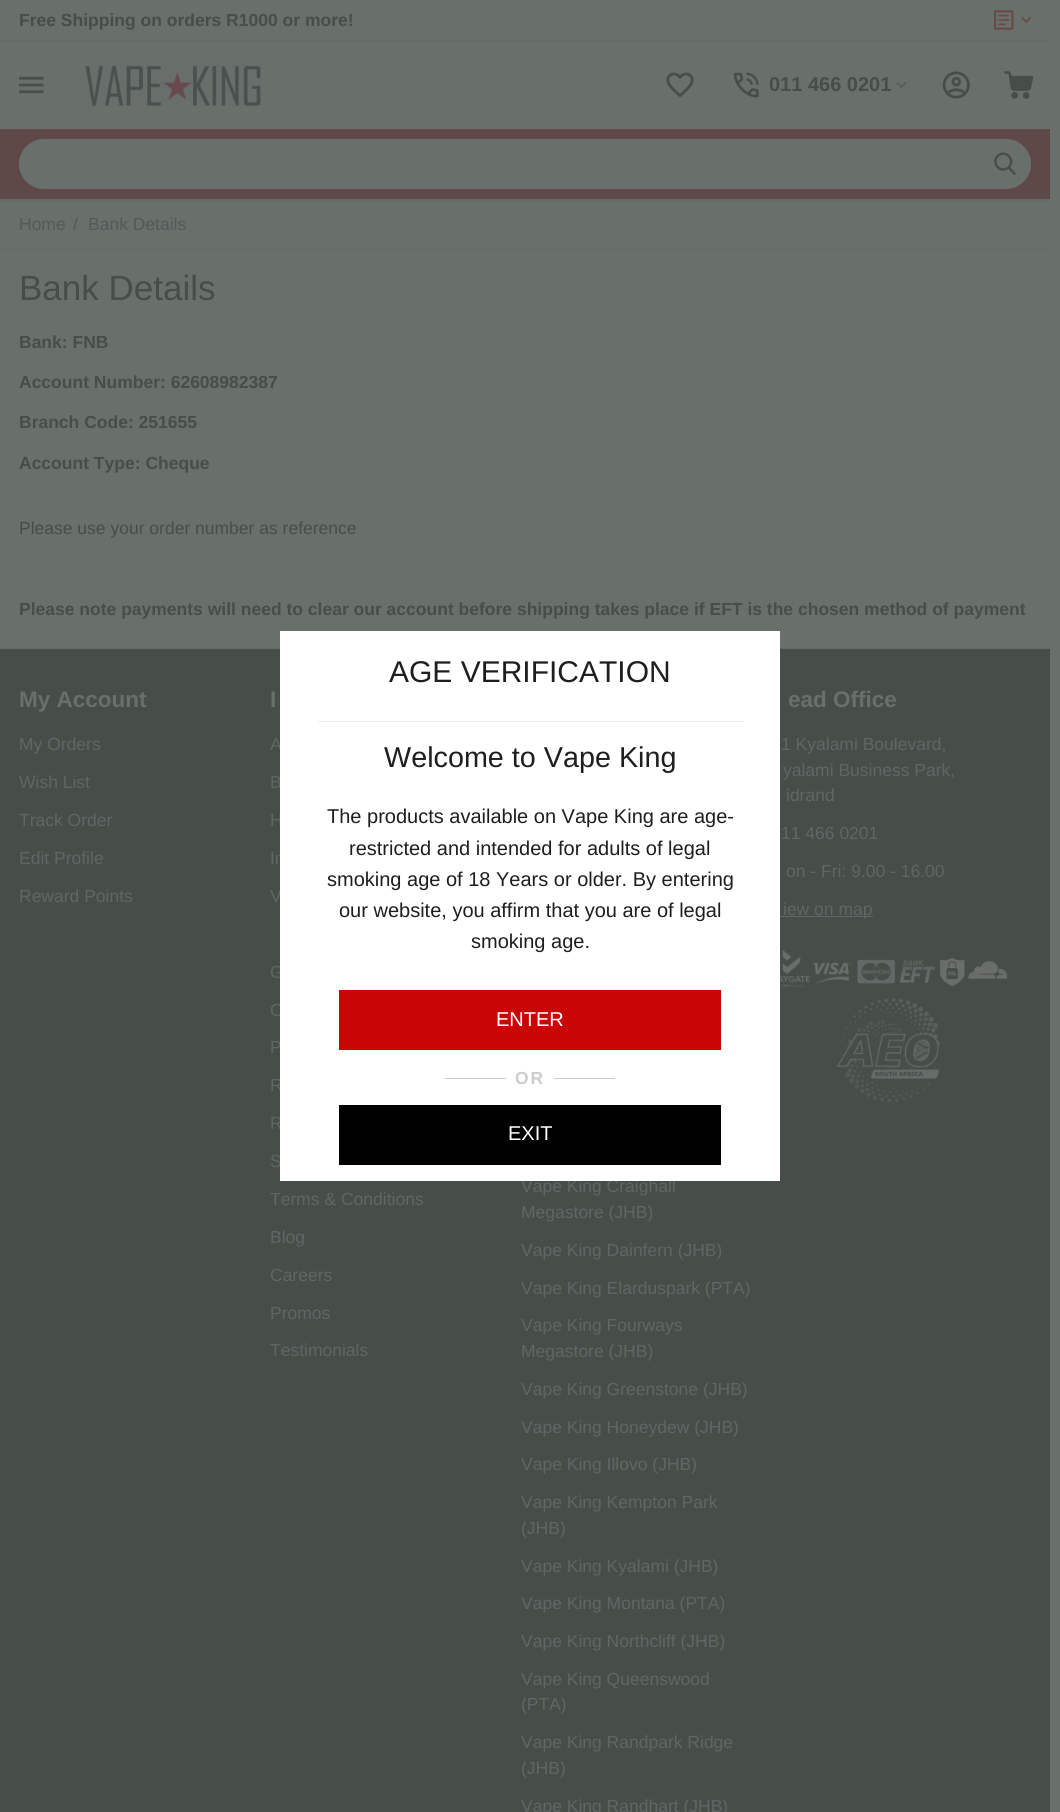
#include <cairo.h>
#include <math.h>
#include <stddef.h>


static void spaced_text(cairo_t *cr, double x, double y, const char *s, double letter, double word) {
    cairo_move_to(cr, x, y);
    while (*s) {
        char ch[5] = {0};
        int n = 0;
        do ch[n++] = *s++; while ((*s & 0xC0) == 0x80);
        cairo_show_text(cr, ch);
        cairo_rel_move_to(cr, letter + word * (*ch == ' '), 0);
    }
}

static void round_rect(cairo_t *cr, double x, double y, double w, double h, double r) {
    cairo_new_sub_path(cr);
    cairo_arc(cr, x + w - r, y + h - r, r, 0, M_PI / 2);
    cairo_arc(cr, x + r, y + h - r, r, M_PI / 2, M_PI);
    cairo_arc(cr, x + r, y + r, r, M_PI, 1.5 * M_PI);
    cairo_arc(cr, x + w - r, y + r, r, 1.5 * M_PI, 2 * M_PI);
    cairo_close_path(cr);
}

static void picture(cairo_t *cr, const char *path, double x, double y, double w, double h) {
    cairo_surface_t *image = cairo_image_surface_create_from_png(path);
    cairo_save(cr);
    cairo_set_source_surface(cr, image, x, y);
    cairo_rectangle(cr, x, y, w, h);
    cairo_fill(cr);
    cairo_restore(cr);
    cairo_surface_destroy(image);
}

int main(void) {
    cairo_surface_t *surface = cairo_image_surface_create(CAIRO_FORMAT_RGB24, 1060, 1812);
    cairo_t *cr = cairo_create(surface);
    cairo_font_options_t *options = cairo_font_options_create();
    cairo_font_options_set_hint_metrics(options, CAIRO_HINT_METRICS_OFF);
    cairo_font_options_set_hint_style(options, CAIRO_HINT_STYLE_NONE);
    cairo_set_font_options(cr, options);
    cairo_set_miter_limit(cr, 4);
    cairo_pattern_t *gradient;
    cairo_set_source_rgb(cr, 0.412, 0.435, 0.42);
    cairo_paint(cr);
    cairo_set_source_rgb(cr, 0.396, 0.42, 0.408);
    cairo_rectangle(cr, 0, 40, 1050, 1);
    cairo_fill(cr);
    cairo_select_font_face(cr, "Liberation Sans", CAIRO_FONT_SLANT_NORMAL, CAIRO_FONT_WEIGHT_BOLD);
    cairo_set_font_size(cr, 17.5);
    cairo_set_source_rgb(cr, 0.278, 0.302, 0.286);
    cairo_move_to(cr, 19, 26);
    cairo_show_text(cr, "Free Shipping on orders R1000 or more!");
    picture(cr, "img1.png", 994, 10, 20, 20);
    picture(cr, "img2.png", 1021, 17, 10, 6);
    picture(cr, "img3.png", 85, 64, 176, 43);
    picture(cr, "img4.png", 942, 71, 28, 28);
    picture(cr, "img5.png", 1004, 71, 30, 28);
    picture(cr, "img6.png", 19, 76, 25, 18);
    cairo_set_source_rgb(cr, 0.373, 0.286, 0.282);
    cairo_rectangle(cr, 0, 129, 1050, 70);
    cairo_fill(cr);
    cairo_set_source_rgb(cr, 0.412, 0.435, 0.42);
    round_rect(cr, 19, 139, 1012, 50, 25);
    cairo_fill(cr);
    picture(cr, "img7.png", 994, 152, 22, 23);
    picture(cr, "img8.png", 666, 72, 28, 26);
    picture(cr, "img9.png", 733, 72, 26, 26);
    cairo_set_font_size(cr, 20);
    cairo_set_source_rgb(cr, 0.278, 0.302, 0.286);
    cairo_move_to(cr, 769, 91);
    cairo_show_text(cr, "011 466 0201");
    picture(cr, "img10.png", 896, 82, 11, 6);
    gradient = cairo_pattern_create_linear(525, 199, 525, 208);
    cairo_pattern_add_color_stop_rgba(gradient, 0, 0.396, 0.42, 0.404, 1);
    cairo_pattern_add_color_stop_rgba(gradient, 1, 0.412, 0.435, 0.42, 1);
    cairo_set_source(cr, gradient);
    cairo_pattern_destroy(gradient);
    cairo_rectangle(cr, 0, 199, 1050, 3);
    cairo_fill(cr);
    cairo_set_source_rgb(cr, 0.396, 0.42, 0.408);
    cairo_rectangle(cr, 0, 249, 1050, 1);
    cairo_fill(cr);
    cairo_select_font_face(cr, "Liberation Sans", CAIRO_FONT_SLANT_NORMAL, CAIRO_FONT_WEIGHT_NORMAL);
    cairo_set_font_size(cr, 17.5);
    cairo_set_source_rgb(cr, 0.329, 0.353, 0.341);
    cairo_move_to(cr, 19, 230);
    cairo_show_text(cr, "Home");
    cairo_move_to(cr, 73, 230);
    cairo_show_text(cr, "/");
    cairo_move_to(cr, 88, 230);
    cairo_show_text(cr, "Bank Details");
    cairo_set_font_size(cr, 35);
    cairo_set_source_rgb(cr, 0.278, 0.302, 0.286);
    cairo_move_to(cr, 19, 300);
    cairo_show_text(cr, "Bank Details");
    cairo_select_font_face(cr, "Liberation Sans", CAIRO_FONT_SLANT_NORMAL, CAIRO_FONT_WEIGHT_BOLD);
    cairo_set_font_size(cr, 17.5);
    cairo_move_to(cr, 19, 348);
    cairo_show_text(cr, "Bank: FNB");
    cairo_move_to(cr, 19, 388);
    cairo_show_text(cr, "Account Number: 62608982387");
    cairo_move_to(cr, 19, 428);
    cairo_show_text(cr, "Branch Code: 251655");
    cairo_move_to(cr, 19, 469);
    cairo_show_text(cr, "Account Type: Cheque");
    cairo_select_font_face(cr, "Liberation Sans", CAIRO_FONT_SLANT_NORMAL, CAIRO_FONT_WEIGHT_NORMAL);
    cairo_move_to(cr, 19, 534);
    cairo_show_text(cr, "Please use your order number as reference");
    cairo_select_font_face(cr, "Liberation Sans", CAIRO_FONT_SLANT_NORMAL, CAIRO_FONT_WEIGHT_BOLD);
    cairo_move_to(cr, 19, 615);
    cairo_show_text(cr, "Please note payments will need to clear our account before shipping takes place if EFT is the chosen method of payment");
    cairo_rectangle(cr, 0, 649, 1050, 1163);
    cairo_fill(cr);
    cairo_set_source_rgb(cr, 0.396, 0.42, 0.408);
    cairo_rectangle(cr, 0, 648, 1050, 1);
    cairo_fill(cr);
    cairo_set_font_size(cr, 22.5);
    cairo_set_source_rgb(cr, 0.412, 0.435, 0.42);
    cairo_move_to(cr, 19, 707);
    cairo_show_text(cr, "My Account");
    cairo_select_font_face(cr, "Liberation Sans", CAIRO_FONT_SLANT_NORMAL, CAIRO_FONT_WEIGHT_NORMAL);
    cairo_set_font_size(cr, 17.5);
    cairo_set_source_rgb(cr, 0.376, 0.4, 0.388);
    cairo_move_to(cr, 19, 750);
    cairo_show_text(cr, "My Orders");
    cairo_move_to(cr, 19, 788);
    cairo_show_text(cr, "Wish List");
    cairo_move_to(cr, 19, 826);
    cairo_show_text(cr, "Track Order");
    cairo_move_to(cr, 19, 864);
    cairo_show_text(cr, "Edit Profile");
    cairo_move_to(cr, 19, 902);
    cairo_show_text(cr, "Reward Points");
    cairo_select_font_face(cr, "Liberation Sans", CAIRO_FONT_SLANT_NORMAL, CAIRO_FONT_WEIGHT_BOLD);
    cairo_set_font_size(cr, 22.5);
    cairo_set_source_rgb(cr, 0.412, 0.435, 0.42);
    cairo_move_to(cr, 270, 707);
    cairo_show_text(cr, "I");
    cairo_select_font_face(cr, "Liberation Sans", CAIRO_FONT_SLANT_NORMAL, CAIRO_FONT_WEIGHT_NORMAL);
    cairo_set_font_size(cr, 17.5);
    cairo_set_source_rgb(cr, 0.376, 0.4, 0.388);
    cairo_move_to(cr, 270, 750);
    cairo_show_text(cr, "A");
    cairo_move_to(cr, 270, 788);
    cairo_show_text(cr, "B");
    cairo_move_to(cr, 270, 826);
    cairo_show_text(cr, "H");
    cairo_move_to(cr, 270, 864);
    cairo_show_text(cr, "In");
    cairo_move_to(cr, 270, 902);
    cairo_show_text(cr, "V");
    cairo_move_to(cr, 270, 978);
    cairo_show_text(cr, "G");
    cairo_move_to(cr, 270, 1016);
    cairo_show_text(cr, "O");
    cairo_move_to(cr, 270, 1053);
    cairo_show_text(cr, "P");
    cairo_move_to(cr, 270, 1091);
    cairo_show_text(cr, "R");
    cairo_move_to(cr, 270, 1129);
    cairo_show_text(cr, "R");
    cairo_move_to(cr, 270, 1167);
    cairo_show_text(cr, "S");
    cairo_move_to(cr, 270, 1205);
    cairo_show_text(cr, "Terms & Conditions");
    cairo_move_to(cr, 270, 1243);
    cairo_show_text(cr, "Blog");
    cairo_move_to(cr, 270, 1281);
    cairo_show_text(cr, "Careers");
    cairo_move_to(cr, 270, 1319);
    cairo_show_text(cr, "Promos");
    cairo_move_to(cr, 270, 1356);
    cairo_show_text(cr, "Testimonials");
    cairo_select_font_face(cr, "Liberation Sans", CAIRO_FONT_SLANT_NORMAL, CAIRO_FONT_WEIGHT_BOLD);
    cairo_set_font_size(cr, 22.5);
    cairo_set_source_rgb(cr, 0.412, 0.435, 0.42);
    cairo_move_to(cr, 788, 707);
    cairo_show_text(cr, "ead Office");
    cairo_select_font_face(cr, "Liberation Sans", CAIRO_FONT_SLANT_NORMAL, CAIRO_FONT_WEIGHT_NORMAL);
    cairo_set_font_size(cr, 17.5);
    cairo_set_source_rgb(cr, 0.376, 0.4, 0.388);
    cairo_move_to(cr, 781, 750);
    cairo_show_text(cr, "1 Kyalami Boulevard,");
    cairo_move_to(cr, 783, 776);
    cairo_show_text(cr, "yalami Business Park,");
    cairo_move_to(cr, 786, 801);
    cairo_show_text(cr, "idrand");
    cairo_move_to(cr, 781, 839);
    cairo_show_text(cr, "11 466 0201");
    cairo_move_to(cr, 786, 877);
    cairo_show_text(cr, "on - Fri: 9.00 - 16.00");
    cairo_rectangle(cr, 780, 916, 93, 1);
    cairo_fill(cr);
    cairo_move_to(cr, 783, 915);
    cairo_show_text(cr, "iew on map");
    picture(cr, "img11.png", 780, 950, 228, 38);
    picture(cr, "img12.png", 836, 998, 107, 105);
    cairo_move_to(cr, 521, 1192);
    cairo_show_text(cr, "Vape King Craighall");
    cairo_move_to(cr, 521, 1218);
    cairo_show_text(cr, "Megastore (JHB)");
    cairo_move_to(cr, 521, 1256);
    cairo_show_text(cr, "Vape King Dainfern (JHB)");
    cairo_move_to(cr, 521, 1294);
    cairo_show_text(cr, "Vape King Elarduspark (PTA)");
    cairo_move_to(cr, 521, 1331);
    cairo_show_text(cr, "Vape King Fourways");
    cairo_move_to(cr, 521, 1357);
    cairo_show_text(cr, "Megastore (JHB)");
    cairo_move_to(cr, 521, 1395);
    cairo_show_text(cr, "Vape King Greenstone (JHB)");
    cairo_move_to(cr, 521, 1433);
    cairo_show_text(cr, "Vape King Honeydew (JHB)");
    cairo_move_to(cr, 521, 1470);
    cairo_show_text(cr, "Vape King Illovo (JHB)");
    cairo_move_to(cr, 521, 1508);
    cairo_show_text(cr, "Vape King Kempton Park");
    cairo_move_to(cr, 521, 1534);
    cairo_show_text(cr, "(JHB)");
    cairo_move_to(cr, 521, 1572);
    cairo_show_text(cr, "Vape King Kyalami (JHB)");
    cairo_move_to(cr, 521, 1609);
    cairo_show_text(cr, "Vape King Montana (PTA)");
    cairo_move_to(cr, 521, 1647);
    cairo_show_text(cr, "Vape King Northcliff (JHB)");
    cairo_move_to(cr, 521, 1685);
    cairo_show_text(cr, "Vape King Queenswood");
    cairo_move_to(cr, 521, 1710);
    cairo_show_text(cr, "(PTA)");
    cairo_move_to(cr, 521, 1748);
    cairo_show_text(cr, "Vape King Randpark Ridge");
    cairo_move_to(cr, 521, 1774);
    cairo_show_text(cr, "(JHB)");
    cairo_move_to(cr, 521, 1812);
    cairo_show_text(cr, "Vape King Randhart (JHB)");
    cairo_set_source_rgb(cr, 1, 1, 1);
    cairo_rectangle(cr, 280, 631, 500, 550);
    cairo_fill(cr);
    cairo_set_source_rgb(cr, 0.933, 0.933, 0.933);
    cairo_rectangle(cr, 318, 721, 425, 1);
    cairo_fill(cr);
    cairo_set_font_size(cr, 30);
    cairo_set_source_rgb(cr, 0.118, 0.118, 0.118);
    cairo_move_to(cr, 389, 682);
    cairo_show_text(cr, "AGE VERIFICATION");
    cairo_set_font_size(cr, 28.75);
    cairo_move_to(cr, 384, 767);
    cairo_show_text(cr, "Welcome to Vape King");
    cairo_set_font_size(cr, 20);
    cairo_move_to(cr, 327, 823);
    cairo_show_text(cr, "The products available on Vape King are age-");
    cairo_move_to(cr, 349, 855);
    cairo_show_text(cr, "restricted and intended for adults of legal");
    cairo_move_to(cr, 327, 886);
    cairo_show_text(cr, "smoking age of 18 Years or older. By entering");
    cairo_move_to(cr, 339, 917);
    cairo_show_text(cr, "our website, you affirm that you are of legal");
    cairo_move_to(cr, 471, 948);
    cairo_show_text(cr, "smoking age.");
    cairo_set_source_rgb(cr, 0.788, 0.024, 0.024);
    cairo_rectangle(cr, 339, 990, 382, 60);
    cairo_fill(cr);
    cairo_set_source_rgb(cr, 1, 1, 1);
    cairo_move_to(cr, 496, 1026);
    cairo_show_text(cr, "ENTER");
    cairo_set_source_rgb(cr, 0.8, 0.8, 0.8);
    cairo_rectangle(cr, 445, 1078, 170, 1);
    cairo_fill(cr);
    cairo_set_source_rgb(cr, 1, 1, 1);
    cairo_rectangle(cr, 506, 1078, 48, 1);
    cairo_fill(cr);
    cairo_select_font_face(cr, "Liberation Sans", CAIRO_FONT_SLANT_NORMAL, CAIRO_FONT_WEIGHT_BOLD);
    cairo_set_font_size(cr, 17.5);
    cairo_set_source_rgb(cr, 0.8, 0.8, 0.8);
    spaced_text(cr, 515, 1084, "OR", 2, 0);
    cairo_set_source_rgb(cr, 0, 0, 0);
    cairo_rectangle(cr, 339, 1105, 382, 60);
    cairo_fill(cr);
    cairo_select_font_face(cr, "Liberation Sans", CAIRO_FONT_SLANT_NORMAL, CAIRO_FONT_WEIGHT_NORMAL);
    cairo_set_font_size(cr, 20);
    cairo_set_source_rgb(cr, 1, 1, 1);
    cairo_move_to(cr, 508, 1140);
    cairo_show_text(cr, "EXIT");
    cairo_surface_write_to_png(surface, "page.png");
    cairo_font_options_destroy(options);
    cairo_destroy(cr);
    cairo_surface_destroy(surface);
    return 0;
}
